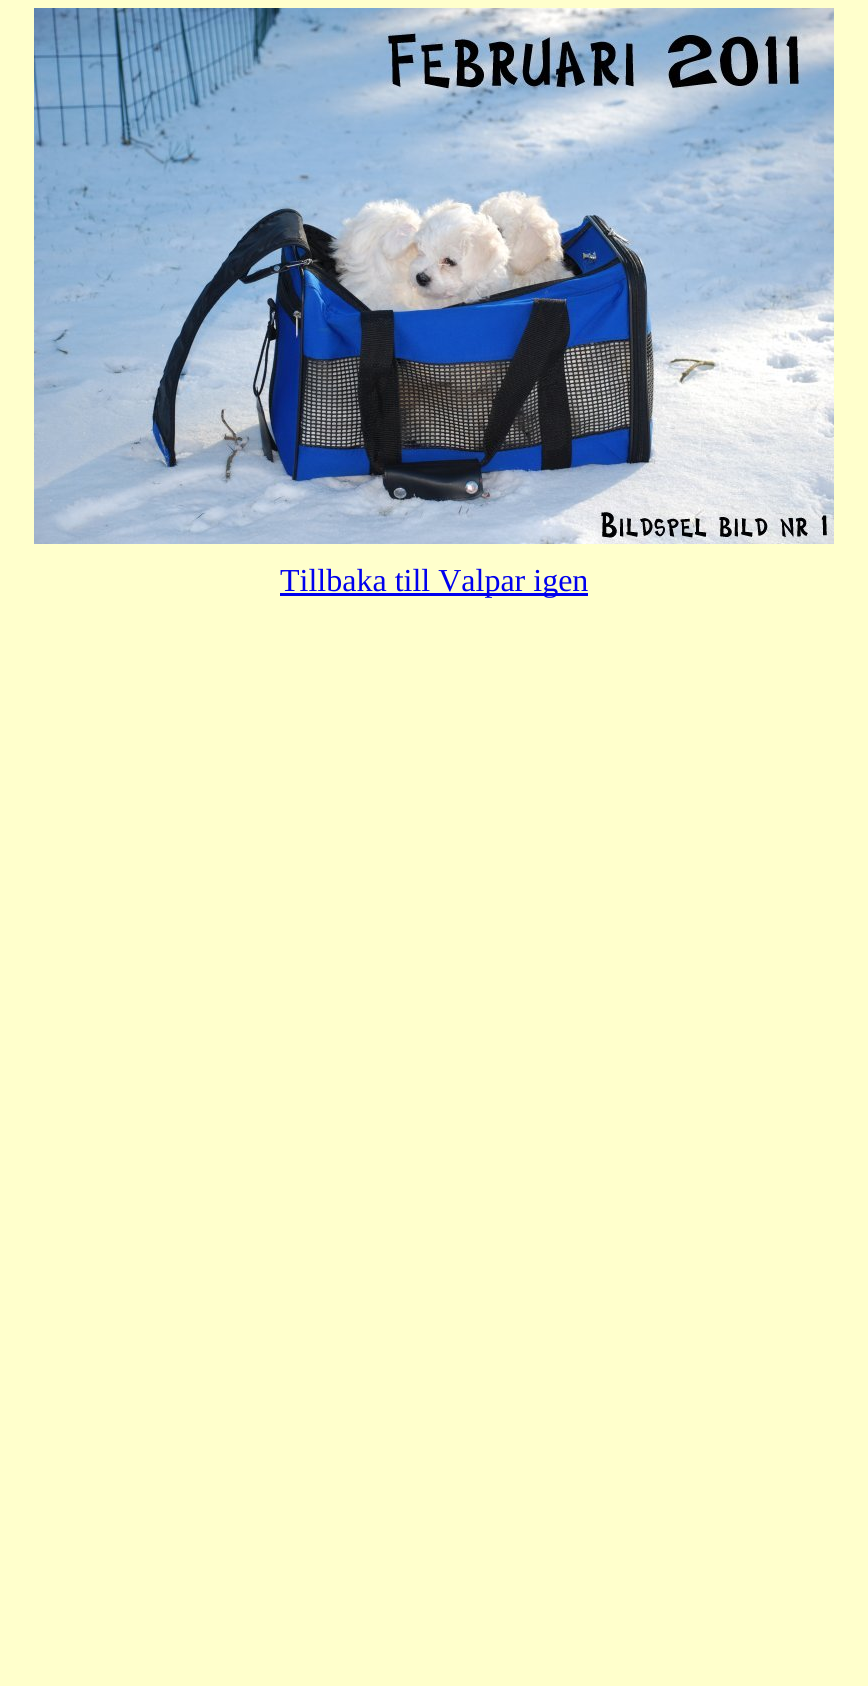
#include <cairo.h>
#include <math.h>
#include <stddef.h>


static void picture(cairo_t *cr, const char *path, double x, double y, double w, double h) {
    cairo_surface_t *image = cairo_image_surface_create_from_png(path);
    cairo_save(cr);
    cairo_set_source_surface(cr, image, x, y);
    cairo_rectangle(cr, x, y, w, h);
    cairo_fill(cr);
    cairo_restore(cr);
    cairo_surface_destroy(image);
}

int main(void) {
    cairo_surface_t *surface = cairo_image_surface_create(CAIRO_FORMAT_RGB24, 868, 1686);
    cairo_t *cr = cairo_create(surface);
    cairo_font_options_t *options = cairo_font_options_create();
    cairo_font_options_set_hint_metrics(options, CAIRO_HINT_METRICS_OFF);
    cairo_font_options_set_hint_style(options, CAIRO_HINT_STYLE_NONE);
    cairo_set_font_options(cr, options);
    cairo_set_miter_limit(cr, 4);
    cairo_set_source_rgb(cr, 1, 1, 0.8);
    cairo_paint(cr);
    picture(cr, "img1.png", 34, 8, 800, 536);
    cairo_set_source_rgb(cr, 0, 0, 0.933);
    cairo_rectangle(cr, 280, 593, 308, 3);
    cairo_fill(cr);
    cairo_select_font_face(cr, "Liberation Serif", CAIRO_FONT_SLANT_NORMAL, CAIRO_FONT_WEIGHT_NORMAL);
    cairo_set_font_size(cr, 32);
    cairo_move_to(cr, 280, 591);
    cairo_show_text(cr, "Tillbaka till Valpar igen");
    cairo_surface_write_to_png(surface, "page.png");
    cairo_font_options_destroy(options);
    cairo_destroy(cr);
    cairo_surface_destroy(surface);
    return 0;
}
